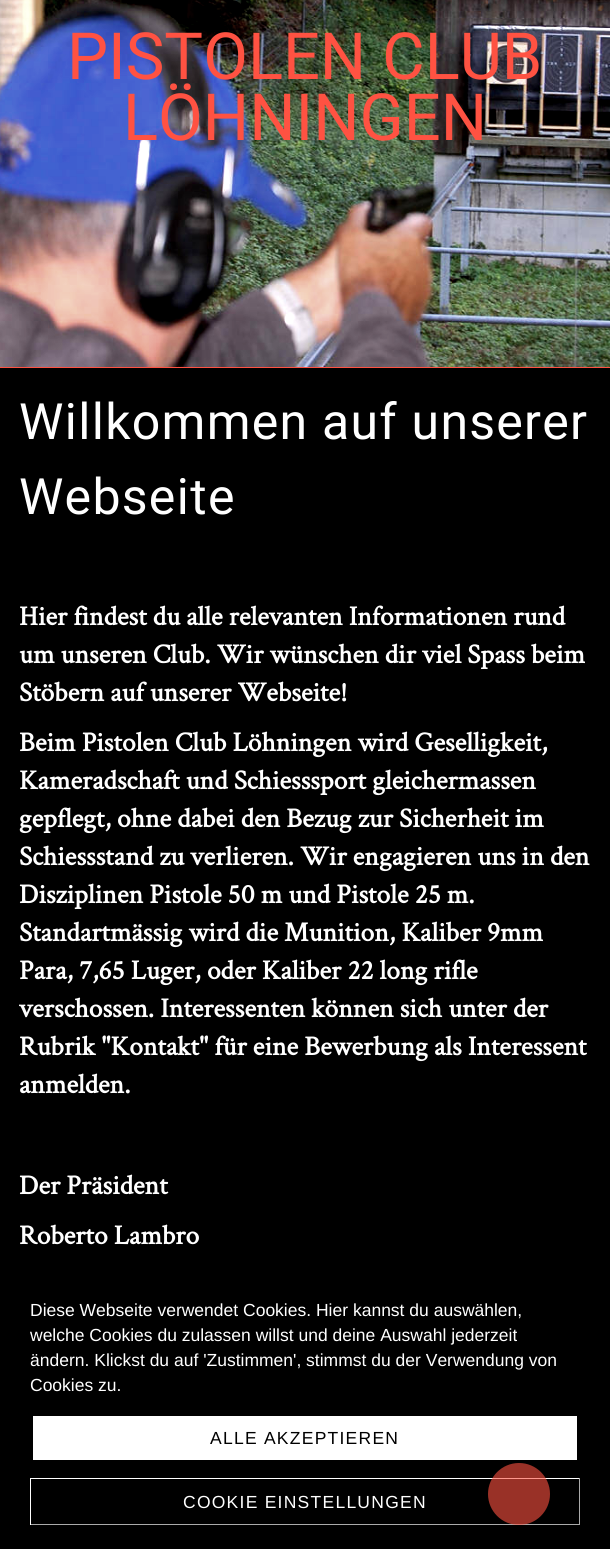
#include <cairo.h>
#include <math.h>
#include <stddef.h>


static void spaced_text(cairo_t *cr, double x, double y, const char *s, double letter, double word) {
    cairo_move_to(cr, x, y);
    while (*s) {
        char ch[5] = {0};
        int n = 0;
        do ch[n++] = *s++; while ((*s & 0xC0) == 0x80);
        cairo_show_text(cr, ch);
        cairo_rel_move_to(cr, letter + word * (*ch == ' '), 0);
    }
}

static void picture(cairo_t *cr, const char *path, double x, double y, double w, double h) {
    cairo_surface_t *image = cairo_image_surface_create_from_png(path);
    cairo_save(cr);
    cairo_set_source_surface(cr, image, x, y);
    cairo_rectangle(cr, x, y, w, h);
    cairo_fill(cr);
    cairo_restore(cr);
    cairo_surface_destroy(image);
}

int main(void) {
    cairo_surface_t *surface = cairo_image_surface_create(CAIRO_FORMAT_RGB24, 610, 1549);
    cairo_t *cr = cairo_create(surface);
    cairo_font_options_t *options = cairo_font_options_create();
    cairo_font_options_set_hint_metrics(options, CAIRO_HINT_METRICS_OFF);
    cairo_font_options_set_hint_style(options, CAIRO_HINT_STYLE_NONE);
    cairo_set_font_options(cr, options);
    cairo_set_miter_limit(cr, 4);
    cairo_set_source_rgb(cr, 0, 0, 0);
    cairo_paint(cr);
    cairo_set_source_rgb(cr, 1, 0.322, 0.259);
    cairo_rectangle(cr, 0, 367, 610, 1);
    cairo_fill(cr);
    picture(cr, "img1.png", 0, 0, 610, 367);
    cairo_select_font_face(cr, "Heebo", CAIRO_FONT_SLANT_NORMAL, CAIRO_FONT_WEIGHT_NORMAL);
    cairo_set_font_size(cr, 65);
    cairo_move_to(cr, 67, 79);
    cairo_show_text(cr, "PISTOLEN CLUB");
    cairo_move_to(cr, 123, 140);
    cairo_show_text(cr, "LÖHNINGEN");
    cairo_set_font_size(cr, 50);
    cairo_set_source_rgb(cr, 1, 1, 1);
    spaced_text(cr, 19, 439, "Willkommen auf unserer", 1.25, 0);
    spaced_text(cr, 19, 514, "Webseite", 1.25, 0);
    cairo_select_font_face(cr, "Crimson Text", CAIRO_FONT_SLANT_NORMAL, CAIRO_FONT_WEIGHT_BOLD);
    cairo_set_font_size(cr, 27.5);
    cairo_move_to(cr, 19, 625);
    cairo_show_text(cr, "Hier findest du alle relevanten Informationen rund");
    cairo_move_to(cr, 19, 663);
    cairo_show_text(cr, "um unseren Club. Wir wünschen dir viel Spass beim");
    cairo_move_to(cr, 19, 701);
    cairo_show_text(cr, "Stöbern auf unserer Webseite!");
    cairo_move_to(cr, 19, 751);
    cairo_show_text(cr, "Beim Pistolen Club Löhningen wird Geselligkeit,");
    cairo_move_to(cr, 19, 789);
    cairo_show_text(cr, "Kameradschaft und Schiesssport gleichermassen");
    cairo_move_to(cr, 19, 827);
    cairo_show_text(cr, "gepflegt, ohne dabei den Bezug zur Sicherheit im");
    cairo_move_to(cr, 19, 865);
    cairo_show_text(cr, "Schiessstand zu verlieren. Wir engagieren uns in den");
    cairo_move_to(cr, 19, 903);
    cairo_show_text(cr, "Disziplinen Pistole 50 m und Pistole 25 m.");
    cairo_move_to(cr, 19, 941);
    cairo_show_text(cr, "Standartmässig wird die Munition, Kaliber 9mm");
    cairo_move_to(cr, 19, 979);
    cairo_show_text(cr, "Para, 7,65 Luger, oder Kaliber 22 long rifle");
    cairo_move_to(cr, 19, 1017);
    cairo_show_text(cr, "verschossen. Interessenten können sich unter der");
    cairo_move_to(cr, 19, 1055);
    cairo_show_text(cr, "Rubrik \"Kontakt\" für eine Bewerbung als Interessent");
    cairo_move_to(cr, 19, 1093);
    cairo_show_text(cr, "anmelden.");
    cairo_move_to(cr, 19, 1194);
    cairo_show_text(cr, "Der Präsident");
    cairo_move_to(cr, 19, 1244);
    cairo_show_text(cr, "Roberto Lambro");
    cairo_select_font_face(cr, "Liberation Sans", CAIRO_FONT_SLANT_NORMAL, CAIRO_FONT_WEIGHT_NORMAL);
    cairo_set_font_size(cr, 17.5);
    cairo_move_to(cr, 30, 1316);
    cairo_show_text(cr, "Diese Webseite verwendet Cookies. Hier kannst du auswählen,");
    cairo_move_to(cr, 30, 1341);
    cairo_show_text(cr, "welche Cookies du zulassen willst und deine Auswahl jederzeit");
    cairo_move_to(cr, 30, 1366);
    cairo_show_text(cr, "ändern. Klickst du auf 'Zustimmen', stimmst du der Verwendung von");
    cairo_move_to(cr, 30, 1391);
    cairo_show_text(cr, "Cookies zu.");
    cairo_rectangle(cr, 33, 1416, 544, 44);
    cairo_fill(cr);
    cairo_set_source_rgb(cr, 0, 0, 0);
    spaced_text(cr, 210, 1444, "ALLE AKZEPTIEREN", 1.25, 0);
    cairo_set_source_rgb(cr, 1, 1, 1);
    cairo_rectangle(cr, 30, 1478, 550, 1);
    cairo_fill(cr);
    cairo_set_source_rgb(cr, 0.667, 0.667, 0.667);
    cairo_rectangle(cr, 579, 1478, 1, 47);
    cairo_fill(cr);
    cairo_rectangle(cr, 30, 1524, 550, 1);
    cairo_fill(cr);
    cairo_set_source_rgb(cr, 1, 1, 1);
    cairo_rectangle(cr, 30, 1478, 1, 47);
    cairo_fill(cr);
    spaced_text(cr, 183, 1508, "COOKIE EINSTELLUNGEN", 1.25, 0);
    cairo_set_source_rgba(cr, 1, 0.322, 0.259, 0.6);
    cairo_new_path(cr);
    cairo_arc(cr, 519, 1494, 31, 0, 2 * M_PI);
    cairo_fill(cr);
    cairo_surface_write_to_png(surface, "page.png");
    cairo_font_options_destroy(options);
    cairo_destroy(cr);
    cairo_surface_destroy(surface);
    return 0;
}
